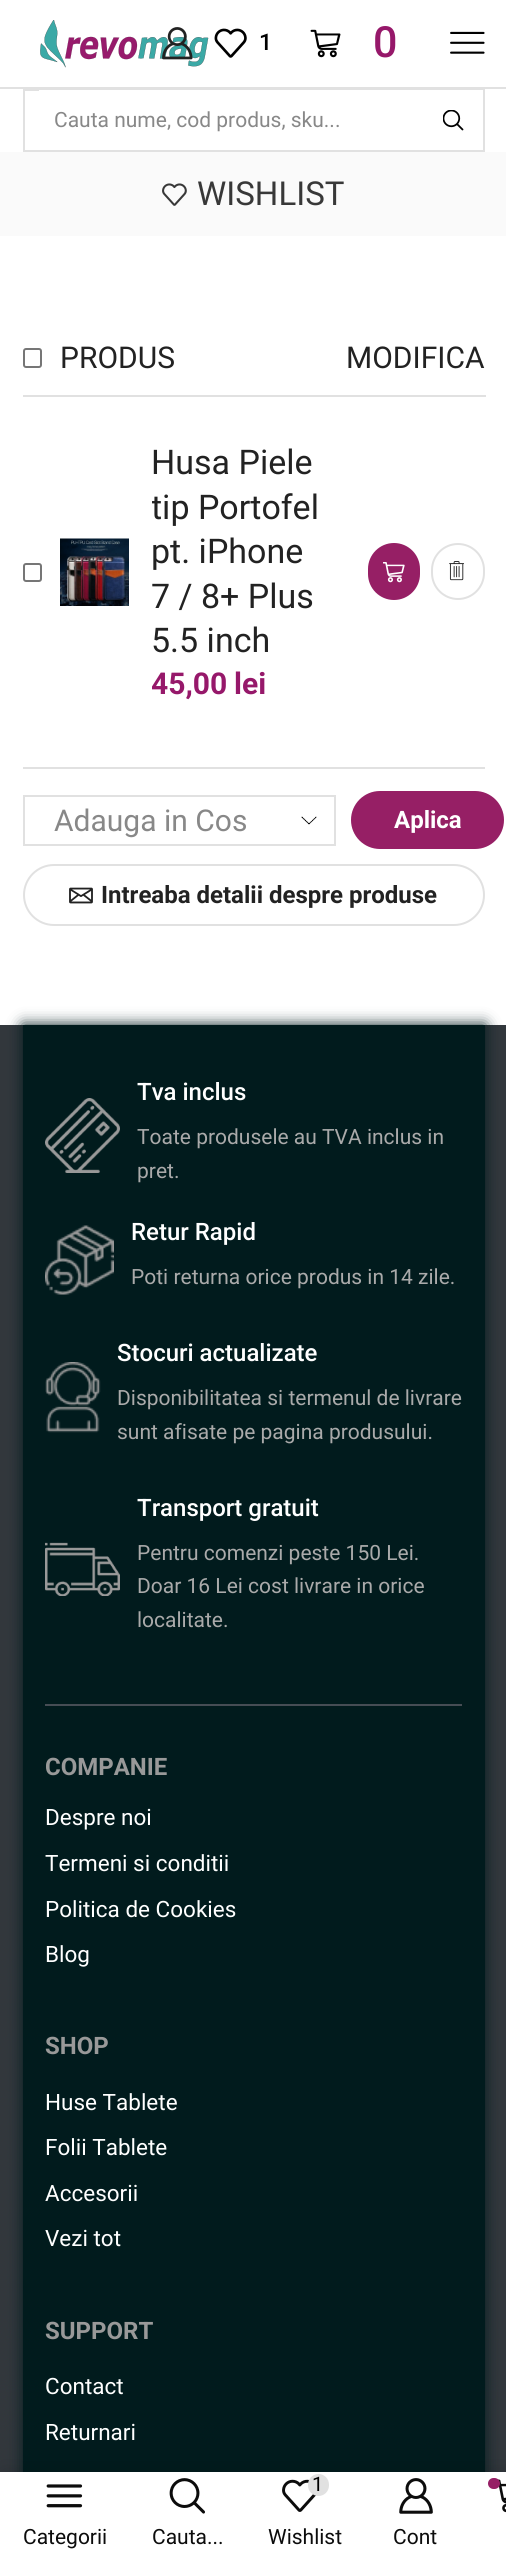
#include <cairo.h>
#include <math.h>
#include <stddef.h>


static void round_rect(cairo_t *cr, double x, double y, double w, double h, double r) {
    cairo_new_sub_path(cr);
    cairo_arc(cr, x + w - r, y + h - r, r, 0, M_PI / 2);
    cairo_arc(cr, x + r, y + h - r, r, M_PI / 2, M_PI);
    cairo_arc(cr, x + r, y + r, r, M_PI, 1.5 * M_PI);
    cairo_arc(cr, x + w - r, y + r, r, 1.5 * M_PI, 2 * M_PI);
    cairo_close_path(cr);
}

static void shadow(cairo_t *cr, double x, double y, double w, double h, double r, double blur, double alpha) {
    cairo_push_group_with_content(cr, CAIRO_CONTENT_ALPHA);
    cairo_set_operator(cr, CAIRO_OPERATOR_SOURCE);
    for (int i = 15; i >= -15 && fmin(w, h) + blur * i / 3 > 0; i -= 2) {
        double e = blur * i / 6;
        cairo_set_source_rgba(cr, 0, 0, 0, alpha * erfc((i - 1) / 8.5) / 2);
        round_rect(cr, x - e, y - e, w + 2 * e, h + 2 * e, fmax(0, fmin(r + e + blur * .6, fmin(w, h) / 2 + e)));
        cairo_fill(cr);
    }
    cairo_pattern_t *soft = cairo_pop_group(cr);
    cairo_mask(cr, soft);
    cairo_pattern_destroy(soft);
}

static void picture(cairo_t *cr, const char *path, double x, double y, double w, double h) {
    cairo_surface_t *image = cairo_image_surface_create_from_png(path);
    cairo_save(cr);
    cairo_set_source_surface(cr, image, x, y);
    cairo_rectangle(cr, x, y, w, h);
    cairo_fill(cr);
    cairo_restore(cr);
    cairo_surface_destroy(image);
}

int main(void) {
    cairo_surface_t *surface = cairo_image_surface_create(CAIRO_FORMAT_RGB24, 506, 2558);
    cairo_t *cr = cairo_create(surface);
    cairo_font_options_t *options = cairo_font_options_create();
    cairo_font_options_set_hint_metrics(options, CAIRO_HINT_METRICS_OFF);
    cairo_font_options_set_hint_style(options, CAIRO_HINT_STYLE_NONE);
    cairo_set_font_options(cr, options);
    cairo_set_miter_limit(cr, 4);
    cairo_set_source_rgb(cr, 1, 1, 1);
    cairo_paint(cr);
    cairo_set_source_rgb(cr, 0.882, 0.882, 0.882);
    cairo_rectangle(cr, 0, 87, 506, 2);
    cairo_fill(cr);
    picture(cr, "img1.png", 40, 20, 169, 48);
    picture(cr, "img2.png", 162, 27, 31, 33);
    picture(cr, "img3.png", 214, 28, 33, 30);
    cairo_select_font_face(cr, "Roboto Medium", CAIRO_FONT_SLANT_NORMAL, CAIRO_FONT_WEIGHT_NORMAL);
    cairo_set_font_size(cr, 23);
    cairo_set_source_rgb(cr, 0, 0, 0);
    cairo_move_to(cr, 259, 50);
    cairo_show_text(cr, "1");
    picture(cr, "img4.png", 310, 29, 31, 29);
    cairo_set_font_size(cr, 43);
    cairo_set_source_rgb(cr, 0.588, 0.094, 0.416);
    cairo_move_to(cr, 373, 57);
    cairo_show_text(cr, "0");
    picture(cr, "img5.png", 450, 31, 35, 23);
    cairo_rectangle(cr, 24, 90, 460, 61);
    cairo_set_source_rgb(cr, 0.882, 0.882, 0.882);
    cairo_stroke(cr);
    cairo_set_source_rgb(cr, 1, 1, 1);
    cairo_rectangle(cr, 39, 90, 444, 1);
    cairo_fill(cr);
    cairo_select_font_face(cr, "Roboto", CAIRO_FONT_SLANT_NORMAL, CAIRO_FONT_WEIGHT_NORMAL);
    cairo_set_font_size(cr, 21);
    cairo_set_source_rgb(cr, 0.533, 0.533, 0.533);
    cairo_move_to(cr, 54, 127);
    cairo_show_text(cr, "Cauta nume, cod produs, sku...");
    picture(cr, "img6.png", 443, 110, 21, 21);
    cairo_set_source_rgb(cr, 0.98, 0.98, 0.98);
    cairo_rectangle(cr, 0, 152, 506, 84);
    cairo_fill(cr);
    picture(cr, "img7.png", 162, 183, 25, 23);
    cairo_set_font_size(cr, 33);
    cairo_set_source_rgb(cr, 0.22, 0.22, 0.22);
    cairo_move_to(cr, 197, 205);
    cairo_show_text(cr, "WISHLIST");
    cairo_set_source_rgb(cr, 0.882, 0.882, 0.882);
    cairo_rectangle(cr, 23, 395, 463, 2);
    cairo_fill(cr);
    round_rect(cr, 24, 349, 17, 18, 2);
    cairo_set_source_rgb(cr, 0.463, 0.463, 0.463);
    cairo_stroke(cr);
    cairo_set_font_size(cr, 30);
    cairo_set_source_rgb(cr, 0.133, 0.133, 0.133);
    cairo_move_to(cr, 60, 368);
    cairo_show_text(cr, "PRODUS");
    cairo_move_to(cr, 346, 368);
    cairo_show_text(cr, "MODIFICA");
    round_rect(cr, 24, 564, 17, 17, 2);
    cairo_set_source_rgb(cr, 0.463, 0.463, 0.463);
    cairo_stroke(cr);
    picture(cr, "img8.png", 60, 538, 69, 68);
    cairo_set_font_size(cr, 34);
    cairo_set_source_rgb(cr, 0.133, 0.133, 0.133);
    cairo_move_to(cr, 151, 474);
    cairo_show_text(cr, "Husa Piele");
    cairo_save(cr);
    cairo_rectangle(cr, 152, 441, 172, 261);
    cairo_clip(cr);
    cairo_move_to(cr, 151, 519);
    cairo_show_text(cr, "tip Portofel");
    cairo_restore(cr);
    cairo_move_to(cr, 151, 563);
    cairo_show_text(cr, "pt. iPhone");
    cairo_move_to(cr, 151, 608);
    cairo_show_text(cr, "7 / 8+ Plus");
    cairo_move_to(cr, 151, 652);
    cairo_show_text(cr, "5.5 inch");
    cairo_save(cr);
    cairo_rectangle(cr, 152, 441, 172, 261);
    cairo_clip(cr);
    cairo_select_font_face(cr, "Roboto", CAIRO_FONT_SLANT_NORMAL, CAIRO_FONT_WEIGHT_BOLD);
    cairo_set_font_size(cr, 30);
    cairo_set_source_rgb(cr, 0.588, 0.094, 0.416);
    cairo_move_to(cr, 151, 694);
    cairo_show_text(cr, "45,00");
    cairo_restore(cr);
    cairo_select_font_face(cr, "Roboto", CAIRO_FONT_SLANT_NORMAL, CAIRO_FONT_WEIGHT_BOLD);
    cairo_set_font_size(cr, 30);
    cairo_set_source_rgb(cr, 0.588, 0.094, 0.416);
    cairo_move_to(cr, 234, 694);
    cairo_show_text(cr, "lei");
    cairo_set_source_rgb(cr, 0.588, 0.122, 0.396);
    round_rect(cr, 368, 543, 52, 57, 26);
    cairo_fill(cr);
    picture(cr, "img9.png", 383, 562, 22, 21);
    round_rect(cr, 432, 544, 52, 55, 26);
    cairo_set_source_rgb(cr, 0.882, 0.882, 0.882);
    cairo_stroke(cr);
    picture(cr, "img10.png", 449, 561, 15, 20);
    cairo_rectangle(cr, 23, 767, 462, 2);
    cairo_fill(cr);
    picture(cr, "img11.png", 301, 816, 16, 9);
    cairo_rectangle(cr, 24, 796, 311, 49);
    cairo_stroke(cr);
    cairo_select_font_face(cr, "Roboto", CAIRO_FONT_SLANT_NORMAL, CAIRO_FONT_WEIGHT_NORMAL);
    cairo_set_source_rgb(cr, 0.533, 0.533, 0.533);
    cairo_move_to(cr, 54, 831);
    cairo_show_text(cr, "Adauga in Cos");
    cairo_set_source_rgb(cr, 0.588, 0.122, 0.396);
    round_rect(cr, 351, 791, 153, 58, 29);
    cairo_fill(cr);
    cairo_select_font_face(cr, "Roboto", CAIRO_FONT_SLANT_NORMAL, CAIRO_FONT_WEIGHT_BOLD);
    cairo_set_font_size(cr, 24);
    cairo_set_source_rgb(cr, 1, 1, 1);
    cairo_move_to(cr, 394, 828);
    cairo_show_text(cr, "Aplica");
    round_rect(cr, 24, 865, 460, 60, 30);
    cairo_set_source_rgb(cr, 0.882, 0.882, 0.882);
    cairo_stroke(cr);
    picture(cr, "img12.png", 69, 887, 24, 17);
    cairo_set_source_rgb(cr, 0.133, 0.133, 0.133);
    cairo_move_to(cr, 101, 903);
    cairo_show_text(cr, "Intreaba detalii despre produse");
    cairo_set_source_rgb(cr, 0.196, 0.216, 0.235);
    cairo_rectangle(cr, 0, 1025, 506, 1447);
    cairo_fill(cr);
    cairo_set_source_rgb(cr, 0.004, 0.106, 0.114);
    shadow(cr, 23, 1025, 462, 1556, 0, 7.5, 1);
    cairo_set_source_rgb(cr, 0.004, 0.106, 0.114);
    cairo_rectangle(cr, 23, 1025, 462, 1447);
    cairo_fill(cr);
    cairo_set_source_rgb(cr, 0.275, 0.302, 0.329);
    cairo_rectangle(cr, 45, 1704, 417, 2);
    cairo_fill(cr);
    picture(cr, "img13.png", 45, 1098, 75, 75);
    cairo_select_font_face(cr, "Roboto Medium", CAIRO_FONT_SLANT_NORMAL, CAIRO_FONT_WEIGHT_NORMAL);
    cairo_set_source_rgb(cr, 1, 1, 1);
    cairo_move_to(cr, 137, 1100);
    cairo_show_text(cr, "Tva inclus");
    cairo_select_font_face(cr, "Roboto", CAIRO_FONT_SLANT_NORMAL, CAIRO_FONT_WEIGHT_NORMAL);
    cairo_set_font_size(cr, 21);
    cairo_set_source_rgb(cr, 0.667, 0.667, 0.667);
    cairo_move_to(cr, 137, 1144);
    cairo_show_text(cr, "Toate produsele au TVA inclus in");
    cairo_move_to(cr, 137, 1178);
    cairo_show_text(cr, "pret.");
    picture(cr, "img14.png", 45, 1225, 69, 70);
    cairo_select_font_face(cr, "Roboto Medium", CAIRO_FONT_SLANT_NORMAL, CAIRO_FONT_WEIGHT_NORMAL);
    cairo_set_font_size(cr, 24);
    cairo_set_source_rgb(cr, 1, 1, 1);
    cairo_move_to(cr, 131, 1240);
    cairo_show_text(cr, "Retur Rapid");
    cairo_select_font_face(cr, "Roboto", CAIRO_FONT_SLANT_NORMAL, CAIRO_FONT_WEIGHT_NORMAL);
    cairo_set_font_size(cr, 21);
    cairo_set_source_rgb(cr, 0.667, 0.667, 0.667);
    cairo_move_to(cr, 131, 1284);
    cairo_show_text(cr, "Poti returna orice produs in 14 zile.");
    picture(cr, "img15.png", 45, 1362, 56, 71);
    cairo_select_font_face(cr, "Roboto Medium", CAIRO_FONT_SLANT_NORMAL, CAIRO_FONT_WEIGHT_NORMAL);
    cairo_set_font_size(cr, 24);
    cairo_set_source_rgb(cr, 1, 1, 1);
    cairo_move_to(cr, 117, 1361);
    cairo_show_text(cr, "Stocuri actualizate");
    cairo_select_font_face(cr, "Roboto", CAIRO_FONT_SLANT_NORMAL, CAIRO_FONT_WEIGHT_NORMAL);
    cairo_set_font_size(cr, 21);
    cairo_set_source_rgb(cr, 0.667, 0.667, 0.667);
    cairo_move_to(cr, 117, 1405);
    cairo_show_text(cr, "Disponibilitatea si termenul de livrare");
    cairo_move_to(cr, 117, 1439);
    cairo_show_text(cr, "sunt afisate pe pagina produsului.");
    picture(cr, "img16.png", 45, 1542, 75, 54);
    cairo_select_font_face(cr, "Roboto Medium", CAIRO_FONT_SLANT_NORMAL, CAIRO_FONT_WEIGHT_NORMAL);
    cairo_set_font_size(cr, 24);
    cairo_set_source_rgb(cr, 1, 1, 1);
    cairo_move_to(cr, 137, 1516);
    cairo_show_text(cr, "Transport gratuit");
    cairo_select_font_face(cr, "Roboto", CAIRO_FONT_SLANT_NORMAL, CAIRO_FONT_WEIGHT_NORMAL);
    cairo_set_font_size(cr, 21);
    cairo_set_source_rgb(cr, 0.667, 0.667, 0.667);
    cairo_move_to(cr, 137, 1560);
    cairo_show_text(cr, "Pentru comenzi peste 150 Lei.");
    cairo_move_to(cr, 137, 1593);
    cairo_show_text(cr, "Doar 16 Lei cost livrare in orice");
    cairo_move_to(cr, 137, 1627);
    cairo_show_text(cr, "localitate.");
    cairo_select_font_face(cr, "Roboto", CAIRO_FONT_SLANT_NORMAL, CAIRO_FONT_WEIGHT_BOLD);
    cairo_set_font_size(cr, 24);
    cairo_set_source_rgb(cr, 0.6, 0.6, 0.6);
    cairo_move_to(cr, 45, 1775);
    cairo_show_text(cr, "COMPANIE");
    cairo_select_font_face(cr, "Roboto", CAIRO_FONT_SLANT_NORMAL, CAIRO_FONT_WEIGHT_NORMAL);
    cairo_set_font_size(cr, 22.5);
    cairo_set_source_rgb(cr, 1, 1, 1);
    cairo_move_to(cr, 45, 1825);
    cairo_show_text(cr, "Despre noi");
    cairo_move_to(cr, 45, 1871);
    cairo_show_text(cr, "Termeni si conditii");
    cairo_move_to(cr, 45, 1917);
    cairo_show_text(cr, "Politica de Cookies");
    cairo_move_to(cr, 45, 1962);
    cairo_show_text(cr, "Blog");
    cairo_select_font_face(cr, "Roboto", CAIRO_FONT_SLANT_NORMAL, CAIRO_FONT_WEIGHT_BOLD);
    cairo_set_font_size(cr, 24);
    cairo_set_source_rgb(cr, 0.6, 0.6, 0.6);
    cairo_move_to(cr, 45, 2054);
    cairo_show_text(cr, "SHOP");
    cairo_select_font_face(cr, "Roboto", CAIRO_FONT_SLANT_NORMAL, CAIRO_FONT_WEIGHT_NORMAL);
    cairo_set_font_size(cr, 22.5);
    cairo_set_source_rgb(cr, 1, 1, 1);
    cairo_move_to(cr, 45, 2110);
    cairo_show_text(cr, "Huse Tablete");
    cairo_move_to(cr, 45, 2155);
    cairo_show_text(cr, "Folii Tablete");
    cairo_move_to(cr, 45, 2201);
    cairo_show_text(cr, "Accesorii");
    cairo_move_to(cr, 45, 2246);
    cairo_show_text(cr, "Vezi tot");
    cairo_select_font_face(cr, "Roboto", CAIRO_FONT_SLANT_NORMAL, CAIRO_FONT_WEIGHT_BOLD);
    cairo_set_font_size(cr, 24);
    cairo_set_source_rgb(cr, 0.6, 0.6, 0.6);
    cairo_move_to(cr, 45, 2339);
    cairo_show_text(cr, "SUPPORT");
    cairo_select_font_face(cr, "Roboto", CAIRO_FONT_SLANT_NORMAL, CAIRO_FONT_WEIGHT_NORMAL);
    cairo_set_font_size(cr, 22.5);
    cairo_set_source_rgb(cr, 1, 1, 1);
    cairo_move_to(cr, 45, 2394);
    cairo_show_text(cr, "Contact");
    cairo_move_to(cr, 45, 2440);
    cairo_show_text(cr, "Returnari");
    cairo_set_source_rgb(cr, 0, 0, 0);
    shadow(cr, 3, 2472, 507, 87, 0, 9, 0.15);
    cairo_set_source_rgb(cr, 1, 1, 1);
    cairo_rectangle(cr, 0, 2472, 506, 86);
    cairo_fill(cr);
    picture(cr, "img17.png", 282, 2479, 35, 33);
    cairo_set_source_rgb(cr, 0.882, 0.882, 0.882);
    round_rect(cr, 308, 2474, 21, 22, 10.5);
    cairo_fill(cr);
    cairo_set_font_size(cr, 20);
    cairo_set_source_rgb(cr, 0, 0, 0);
    cairo_move_to(cr, 312, 2491);
    cairo_show_text(cr, "1");
    cairo_set_font_size(cr, 21);
    cairo_set_source_rgb(cr, 0.047, 0.047, 0.047);
    cairo_move_to(cr, 268, 2544);
    cairo_show_text(cr, "Wishlist");
    picture(cr, "img18.png", 497, 2479, 9, 34);
    cairo_set_source_rgb(cr, 0.588, 0.122, 0.396);
    round_rect(cr, 488, 2478, 12, 11, 5.5);
    cairo_fill(cr);
    picture(cr, "img19.png", 46, 2484, 37, 24);
    cairo_set_source_rgb(cr, 0.047, 0.047, 0.047);
    cairo_move_to(cr, 23, 2544);
    cairo_show_text(cr, "Categorii");
    picture(cr, "img20.png", 169, 2478, 36, 36);
    cairo_move_to(cr, 152, 2544);
    cairo_show_text(cr, "Cauta...");
    picture(cr, "img21.png", 399, 2478, 34, 36);
    cairo_move_to(cr, 393, 2544);
    cairo_show_text(cr, "Cont");
    cairo_surface_write_to_png(surface, "page.png");
    cairo_font_options_destroy(options);
    cairo_destroy(cr);
    cairo_surface_destroy(surface);
    return 0;
}
